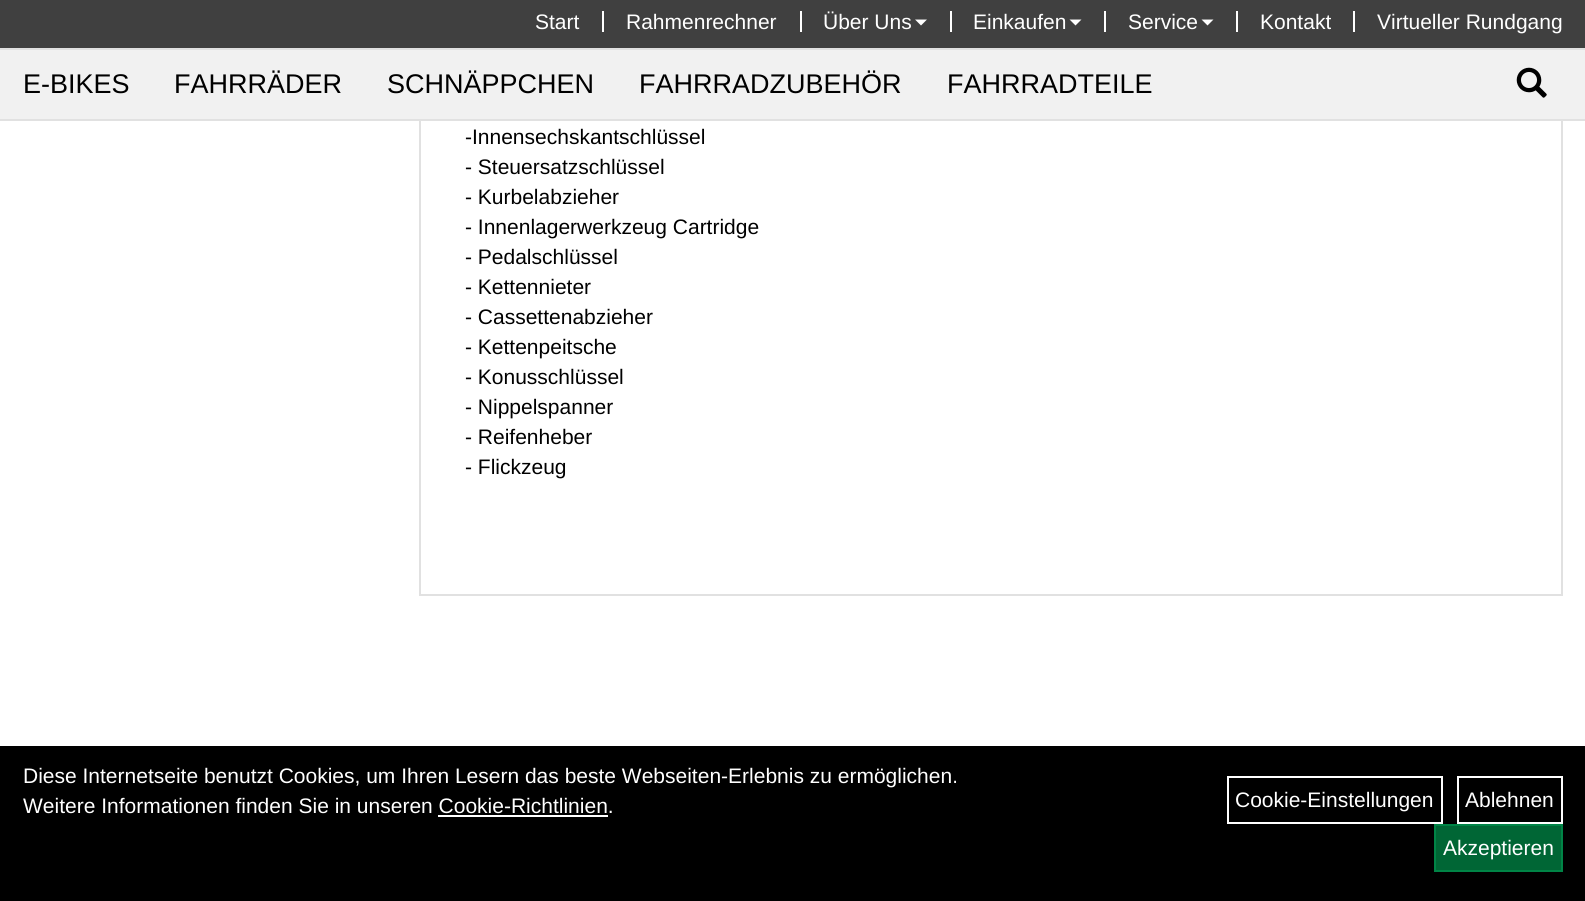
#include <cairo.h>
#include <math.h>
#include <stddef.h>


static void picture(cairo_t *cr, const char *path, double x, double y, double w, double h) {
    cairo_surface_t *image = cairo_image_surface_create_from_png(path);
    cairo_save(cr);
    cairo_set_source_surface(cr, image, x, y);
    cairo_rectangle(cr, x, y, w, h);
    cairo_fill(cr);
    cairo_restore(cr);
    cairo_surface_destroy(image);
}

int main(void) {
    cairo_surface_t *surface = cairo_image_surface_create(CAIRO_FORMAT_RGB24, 1585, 901);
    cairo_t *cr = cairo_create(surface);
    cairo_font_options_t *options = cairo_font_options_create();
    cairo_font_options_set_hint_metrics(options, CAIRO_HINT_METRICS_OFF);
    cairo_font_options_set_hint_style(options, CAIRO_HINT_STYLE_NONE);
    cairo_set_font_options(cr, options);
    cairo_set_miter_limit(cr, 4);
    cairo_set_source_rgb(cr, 1, 1, 1);
    cairo_paint(cr);
    cairo_rectangle(cr, 420, -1, 1142, 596);
    cairo_set_source_rgb(cr, 0.882, 0.882, 0.882);
    cairo_stroke(cr);
    cairo_set_source_rgb(cr, 0.251, 0.251, 0.251);
    cairo_rectangle(cr, 0, 0, 1585, 48);
    cairo_fill(cr);
    cairo_set_source_rgb(cr, 1, 1, 1);
    cairo_rectangle(cr, 602, 11, 2, 21);
    cairo_fill(cr);
    cairo_select_font_face(cr, "Liberation Sans", CAIRO_FONT_SLANT_NORMAL, CAIRO_FONT_WEIGHT_NORMAL);
    cairo_set_font_size(cr, 21);
    cairo_move_to(cr, 535, 29);
    cairo_show_text(cr, "Start");
    cairo_rectangle(cr, 800, 11, 2, 21);
    cairo_fill(cr);
    cairo_move_to(cr, 626, 29);
    cairo_show_text(cr, "Rahmenrechner");
    cairo_rectangle(cr, 950, 11, 2, 21);
    cairo_fill(cr);
    cairo_move_to(cr, 823, 29);
    cairo_show_text(cr, "Über Uns");
    cairo_new_path(cr);
    cairo_move_to(cr, 915, 19.5);
    cairo_line_to(cr, 927, 19.5);
    cairo_line_to(cr, 921, 25.5);
    cairo_close_path(cr);
    cairo_fill(cr);
    cairo_rectangle(cr, 1104, 11, 2, 21);
    cairo_fill(cr);
    cairo_move_to(cr, 973, 29);
    cairo_show_text(cr, "Einkaufen");
    cairo_new_path(cr);
    cairo_move_to(cr, 1069.5, 19.5);
    cairo_line_to(cr, 1081.5, 19.5);
    cairo_line_to(cr, 1075.5, 25.5);
    cairo_close_path(cr);
    cairo_fill(cr);
    cairo_rectangle(cr, 1236, 11, 2, 21);
    cairo_fill(cr);
    cairo_move_to(cr, 1128, 29);
    cairo_show_text(cr, "Service");
    cairo_new_path(cr);
    cairo_move_to(cr, 1201.5, 19.5);
    cairo_line_to(cr, 1213.5, 19.5);
    cairo_line_to(cr, 1207.5, 25.5);
    cairo_close_path(cr);
    cairo_fill(cr);
    cairo_rectangle(cr, 1353, 11, 2, 21);
    cairo_fill(cr);
    cairo_move_to(cr, 1260, 29);
    cairo_show_text(cr, "Kontakt");
    cairo_move_to(cr, 1377, 29);
    cairo_show_text(cr, "Virtueller Rundgang");
    cairo_set_source_rgb(cr, 0.945, 0.945, 0.945);
    cairo_rectangle(cr, 0, 50, 1585, 69);
    cairo_fill(cr);
    cairo_set_source_rgb(cr, 0.882, 0.882, 0.882);
    cairo_rectangle(cr, 0, 48, 1585, 2);
    cairo_fill(cr);
    cairo_rectangle(cr, 0, 119, 1585, 2);
    cairo_fill(cr);
    cairo_set_font_size(cr, 27);
    cairo_set_source_rgb(cr, 0, 0, 0);
    cairo_move_to(cr, 23, 93);
    cairo_show_text(cr, "E-BIKES");
    cairo_move_to(cr, 174, 93);
    cairo_show_text(cr, "FAHRRÄDER");
    cairo_move_to(cr, 387, 93);
    cairo_show_text(cr, "SCHNÄPPCHEN");
    cairo_move_to(cr, 639, 93);
    cairo_show_text(cr, "FAHRRADZUBEHÖR");
    cairo_move_to(cr, 947, 93);
    cairo_show_text(cr, "FAHRRADTEILE");
    picture(cr, "img1.png", 1516, 67, 31, 31);
    cairo_set_font_size(cr, 21);
    cairo_move_to(cr, 465, 144);
    cairo_show_text(cr, "-Innensechskantschlüssel");
    cairo_move_to(cr, 465, 174);
    cairo_show_text(cr, "- Steuersatzschlüssel");
    cairo_move_to(cr, 465, 204);
    cairo_show_text(cr, "- Kurbelabzieher");
    cairo_move_to(cr, 465, 234);
    cairo_show_text(cr, "- Innenlagerwerkzeug Cartridge");
    cairo_move_to(cr, 465, 264);
    cairo_show_text(cr, "- Pedalschlüssel");
    cairo_move_to(cr, 465, 294);
    cairo_show_text(cr, "- Kettennieter");
    cairo_move_to(cr, 465, 324);
    cairo_show_text(cr, "- Cassettenabzieher");
    cairo_move_to(cr, 465, 354);
    cairo_show_text(cr, "- Kettenpeitsche");
    cairo_move_to(cr, 465, 384);
    cairo_show_text(cr, "- Konusschlüssel");
    cairo_move_to(cr, 465, 414);
    cairo_show_text(cr, "- Nippelspanner");
    cairo_move_to(cr, 465, 444);
    cairo_show_text(cr, "- Reifenheber");
    cairo_move_to(cr, 465, 474);
    cairo_show_text(cr, "- Flickzeug");
    cairo_rectangle(cr, 0, 746, 1585, 155);
    cairo_fill(cr);
    cairo_set_source_rgb(cr, 1, 1, 1);
    cairo_move_to(cr, 23, 783);
    cairo_show_text(cr, "Diese Internetseite benutzt Cookies, um Ihren Lesern das beste Webseiten-Erlebnis zu ermöglichen.");
    cairo_move_to(cr, 23, 813);
    cairo_show_text(cr, "Weitere Informationen finden Sie in unseren Cookie-Richtlinien.");
    cairo_rectangle(cr, 438, 815, 170, 2);
    cairo_fill(cr);
    cairo_rectangle(cr, 1228, 777, 214, 46);
    cairo_stroke(cr);
    cairo_move_to(cr, 1235, 807);
    cairo_show_text(cr, "Cookie-Einstellungen");
    cairo_rectangle(cr, 1458, 777, 104, 46);
    cairo_stroke(cr);
    cairo_move_to(cr, 1465, 807);
    cairo_show_text(cr, "Ablehnen");
    cairo_set_source_rgb(cr, 0, 0.4, 0.208);
    cairo_rectangle(cr, 1435, 825, 127, 46);
    cairo_fill_preserve(cr);
    cairo_set_source_rgb(cr, 0, 0.518, 0.275);
    cairo_stroke(cr);
    cairo_set_source_rgb(cr, 1, 1, 1);
    cairo_move_to(cr, 1443, 855);
    cairo_show_text(cr, "Akzeptieren");
    cairo_surface_write_to_png(surface, "page.png");
    cairo_font_options_destroy(options);
    cairo_destroy(cr);
    cairo_surface_destroy(surface);
    return 0;
}
